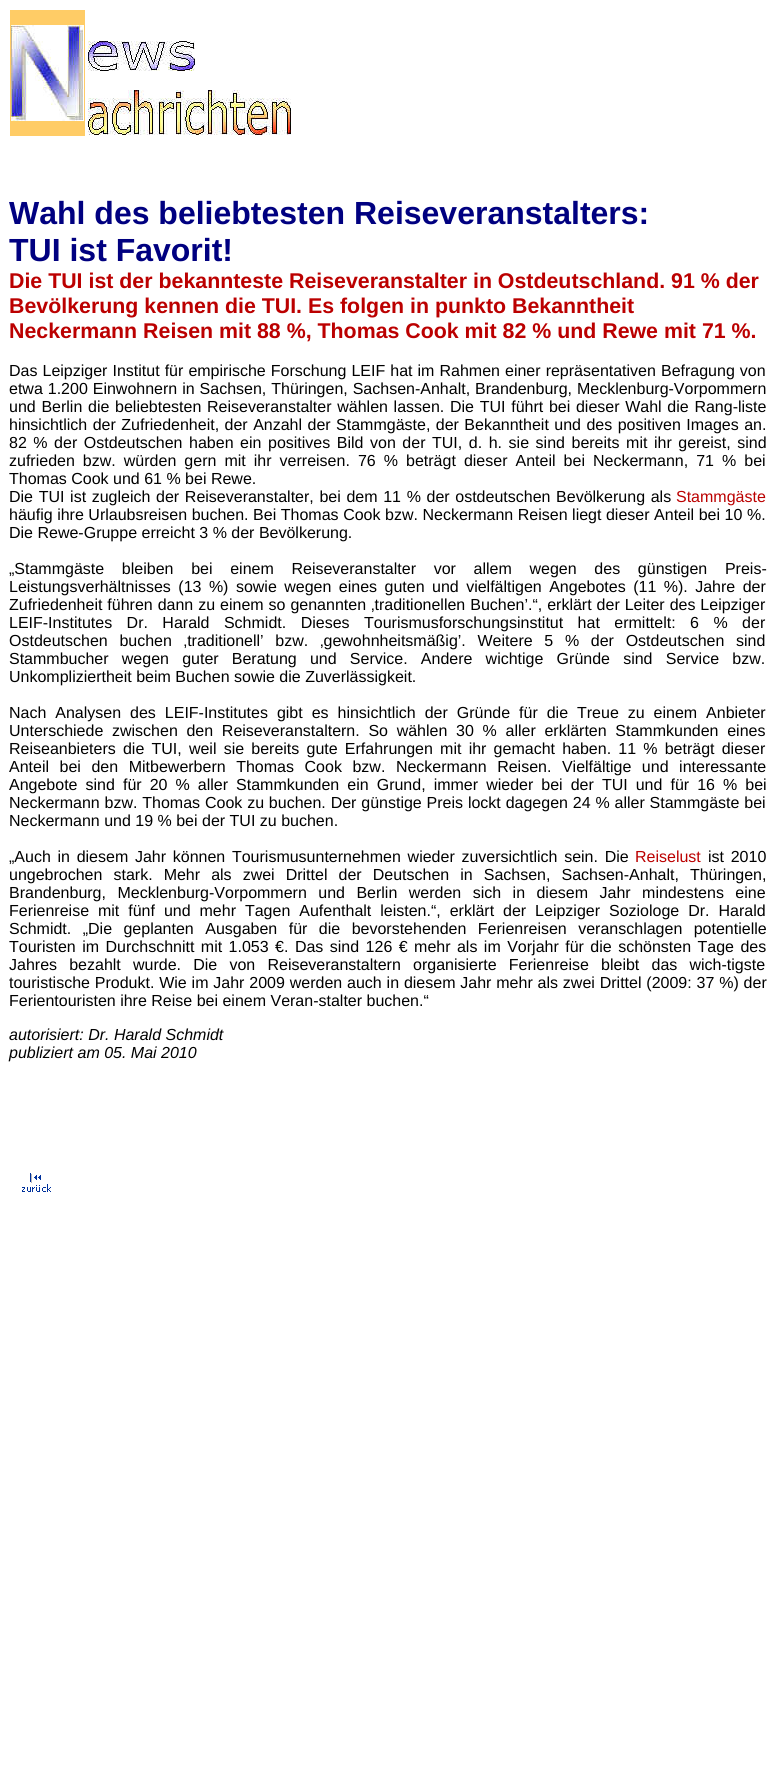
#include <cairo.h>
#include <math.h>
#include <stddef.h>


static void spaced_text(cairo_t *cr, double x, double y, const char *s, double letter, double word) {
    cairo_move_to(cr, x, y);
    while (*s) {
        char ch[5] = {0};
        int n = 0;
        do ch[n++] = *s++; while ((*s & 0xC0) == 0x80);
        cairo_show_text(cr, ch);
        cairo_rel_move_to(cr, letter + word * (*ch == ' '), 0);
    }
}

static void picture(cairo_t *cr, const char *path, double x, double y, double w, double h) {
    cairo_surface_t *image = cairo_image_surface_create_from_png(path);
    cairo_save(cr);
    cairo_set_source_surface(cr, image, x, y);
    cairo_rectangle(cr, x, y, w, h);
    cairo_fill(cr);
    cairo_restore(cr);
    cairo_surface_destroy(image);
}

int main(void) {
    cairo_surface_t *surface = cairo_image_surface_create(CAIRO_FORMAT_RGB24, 775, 1788);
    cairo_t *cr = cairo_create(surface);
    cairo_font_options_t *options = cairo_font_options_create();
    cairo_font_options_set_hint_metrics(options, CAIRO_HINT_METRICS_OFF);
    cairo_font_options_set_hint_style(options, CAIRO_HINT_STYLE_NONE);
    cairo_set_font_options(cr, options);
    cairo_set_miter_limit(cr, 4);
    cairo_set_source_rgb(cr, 1, 1, 1);
    cairo_paint(cr);
    cairo_set_source_rgb(cr, 1, 0.8, 0.4);
    cairo_rectangle(cr, 10, 10, 75, 126);
    cairo_fill(cr);
    picture(cr, "img1.png", 11, 25, 73, 96);
    picture(cr, "img2.png", 88, 41, 107, 30);
    picture(cr, "img3.png", 88, 90, 203, 45);
    cairo_select_font_face(cr, "Liberation Sans", CAIRO_FONT_SLANT_NORMAL, CAIRO_FONT_WEIGHT_BOLD);
    cairo_set_font_size(cr, 32);
    cairo_set_source_rgb(cr, 0, 0, 0.502);
    cairo_move_to(cr, 9, 224);
    cairo_show_text(cr, "Wahl des beliebtesten Reiseveranstalters:");
    cairo_move_to(cr, 9, 261);
    cairo_show_text(cr, "TUI ist Favorit!");
    cairo_set_font_size(cr, 21.35);
    cairo_set_source_rgb(cr, 0.733, 0, 0);
    cairo_move_to(cr, 9, 288);
    cairo_show_text(cr, "Die TUI ist der bekannteste Reiseveranstalter in Ostdeutschland. 91 % der");
    cairo_move_to(cr, 9, 313);
    cairo_show_text(cr, "Bevölkerung kennen die TUI. Es folgen in punkto Bekanntheit");
    cairo_move_to(cr, 9, 338);
    cairo_show_text(cr, "Neckermann Reisen mit 88 %, Thomas Cook mit 82 % und Rewe mit 71 %.");
    cairo_select_font_face(cr, "Liberation Sans", CAIRO_FONT_SLANT_NORMAL, CAIRO_FONT_WEIGHT_NORMAL);
    cairo_set_font_size(cr, 16);
    cairo_set_source_rgb(cr, 0, 0, 0);
    spaced_text(cr, 9, 376, "Das Leipziger Institut für empirische Forschung LEIF hat im Rahmen einer repräsentativen Befragung von", 0, 0.6);
    spaced_text(cr, 9, 394, "etwa 1.200 Einwohnern in Sachsen, Thüringen, Sachsen-Anhalt, Brandenburg, Mecklenburg-Vorpommern", 0, 0.5);
    spaced_text(cr, 9, 412, "und Berlin die beliebtesten Reiseveranstalter wählen lassen. Die TUI führt bei dieser Wahl die Rang-liste", 0, 1.25);
    spaced_text(cr, 9, 430, "hinsichtlich der Zufriedenheit, der Anzahl der Stammgäste, der Bekanntheit und des positiven Images an.", 0, 1);
    spaced_text(cr, 9, 448, "82 % der Ostdeutschen haben ein positives Bild von der TUI, d. h. sie sind bereits mit ihr gereist, sind", 0, 2.1);
    spaced_text(cr, 9, 466, "zufrieden bzw. würden gern mit ihr verreisen. 76 % beträgt dieser Anteil bei Neckermann, 71 % bei", 0, 3.6);
    cairo_move_to(cr, 9, 484);
    cairo_show_text(cr, "Thomas Cook und 61 % bei Rewe.");
    spaced_text(cr, 9, 502, "Die TUI ist zugleich der Reiseveranstalter, bei dem 11 % der ostdeutschen Bevölkerung als", 0, 1.2);
    cairo_set_source_rgb(cr, 0.733, 0, 0);
    cairo_move_to(cr, 676, 502);
    cairo_show_text(cr, "Stammgäste");
    cairo_set_source_rgb(cr, 0, 0, 0);
    spaced_text(cr, 9, 520, "häufig ihre Urlaubsreisen buchen. Bei Thomas Cook bzw. Neckermann Reisen liegt dieser Anteil bei 10 %.", 0, 0.1);
    cairo_move_to(cr, 9, 538);
    cairo_show_text(cr, "Die Rewe-Gruppe erreicht 3 % der Bevölkerung.");
    spaced_text(cr, 9, 574, "„Stammgäste bleiben bei einem Reiseveranstalter vor allem wegen des günstigen Preis-", 0, 13.25);
    spaced_text(cr, 9, 592, "Leistungsverhältnisses (13 %) sowie wegen eines guten und vielfältigen Angebotes (11 %). Jahre der", 0, 3);
    spaced_text(cr, 9, 610, "Zufriedenheit führen dann zu einem so genannten ‚traditionellen Buchen’.“, erklärt der Leiter des Leipziger", 0, 0.5);
    spaced_text(cr, 9, 628, "LEIF-Institutes Dr. Harald Schmidt. Dieses Tourismusforschungsinstitut hat ermittelt: 6 % der", 0, 10);
    spaced_text(cr, 9, 646, "Ostdeutschen buchen ‚traditionell’ bzw. ‚gewohnheitsmäßig’. Weitere 5 % der Ostdeutschen sind", 0, 7.25);
    spaced_text(cr, 9, 664, "Stammbucher wegen guter Beratung und Service. Andere wichtige Gründe sind Service bzw.", 0, 8.75);
    cairo_move_to(cr, 9, 682);
    cairo_show_text(cr, "Unkompliziertheit beim Buchen sowie die Zuverlässigkeit.");
    spaced_text(cr, 9, 718, "Nach Analysen des LEIF-Institutes gibt es hinsichtlich der Gründe für die Treue zu einem Anbieter", 0, 4.5);
    spaced_text(cr, 9, 736, "Unterschiede zwischen den Reiseveranstaltern. So wählen 30 % aller erklärten Stammkunden eines", 0, 4.25);
    spaced_text(cr, 9, 754, "Reiseanbieters die TUI, weil sie bereits gute Erfahrungen mit ihr gemacht haben. 11 % beträgt dieser", 0, 2.75);
    spaced_text(cr, 9, 772, "Anteil bei den Mitbewerbern Thomas Cook bzw. Neckermann Reisen. Vielfältige und interessante", 0, 6.1);
    spaced_text(cr, 9, 790, "Angebote sind für 20 % aller Stammkunden ein Grund, immer wieder bei der TUI und für 16 % bei", 0, 3.6);
    spaced_text(cr, 9, 808, "Neckermann bzw. Thomas Cook zu buchen. Der günstige Preis lockt dagegen 24 % aller Stammgäste bei", 0, 0.4);
    cairo_move_to(cr, 9, 826);
    cairo_show_text(cr, "Neckermann und 19 % bei der TUI zu buchen.");
    spaced_text(cr, 9, 862, "„Auch in diesem Jahr können Tourismusunternehmen wieder zuversichtlich sein. Die", 0, 2.25);
    cairo_set_source_rgb(cr, 0.733, 0, 0);
    cairo_move_to(cr, 635, 862);
    cairo_show_text(cr, "Reiselust");
    cairo_set_source_rgb(cr, 0, 0, 0);
    spaced_text(cr, 708, 862, "ist 2010", 0, 2.25);
    spaced_text(cr, 9, 880, "ungebrochen stark. Mehr als zwei Drittel der Deutschen in Sachsen, Sachsen-Anhalt, Thüringen,", 0, 6.6);
    spaced_text(cr, 9, 898, "Brandenburg, Mecklenburg-Vorpommern und Berlin werden sich in diesem Jahr mindestens eine", 0, 7);
    spaced_text(cr, 9, 916, "Ferienreise mit fünf und mehr Tagen Aufenthalt leisten.“, erklärt der Leipziger Soziologe Dr. Harald", 0, 4.5);
    spaced_text(cr, 9, 934, "Schmidt. „Die geplanten Ausgaben für die bevorstehenden Ferienreisen veranschlagen potentielle", 0, 7);
    spaced_text(cr, 9, 952, "Touristen im Durchschnitt mit 1.053 €. Das sind 126 € mehr als im Vorjahr für die schönsten Tage des", 0, 2);
    spaced_text(cr, 9, 970, "Jahres bezahlt wurde. Die von Reiseveranstaltern organisierte Ferienreise bleibt das wich-tigste", 0, 7.75);
    spaced_text(cr, 9, 988, "touristische Produkt. Wie im Jahr 2009 werden auch in diesem Jahr mehr als zwei Drittel (2009: 37 %) der", 0, 0.4);
    cairo_move_to(cr, 9, 1006);
    cairo_show_text(cr, "Ferientouristen ihre Reise bei einem Veran-stalter buchen.“");
    cairo_select_font_face(cr, "Liberation Sans", CAIRO_FONT_SLANT_ITALIC, CAIRO_FONT_WEIGHT_NORMAL);
    cairo_move_to(cr, 9, 1040);
    cairo_show_text(cr, "autorisiert: Dr. Harald Schmidt");
    cairo_move_to(cr, 9, 1058);
    cairo_show_text(cr, "publiziert am 05. Mai 2010");
    picture(cr, "img4.png", 22, 1173, 29, 19);
    cairo_surface_write_to_png(surface, "page.png");
    cairo_font_options_destroy(options);
    cairo_destroy(cr);
    cairo_surface_destroy(surface);
    return 0;
}
